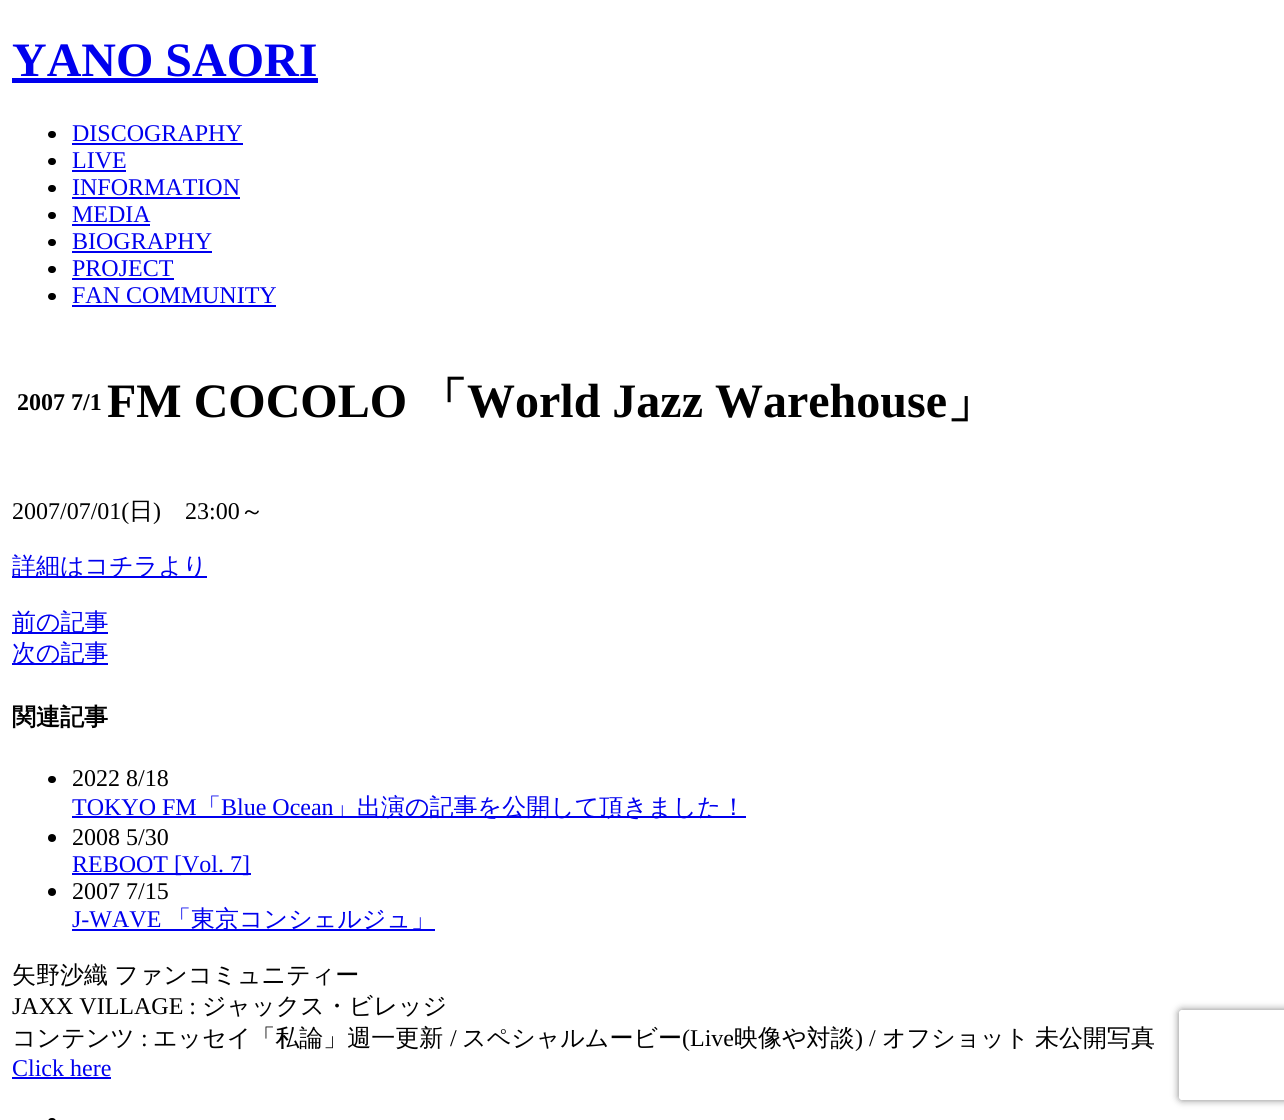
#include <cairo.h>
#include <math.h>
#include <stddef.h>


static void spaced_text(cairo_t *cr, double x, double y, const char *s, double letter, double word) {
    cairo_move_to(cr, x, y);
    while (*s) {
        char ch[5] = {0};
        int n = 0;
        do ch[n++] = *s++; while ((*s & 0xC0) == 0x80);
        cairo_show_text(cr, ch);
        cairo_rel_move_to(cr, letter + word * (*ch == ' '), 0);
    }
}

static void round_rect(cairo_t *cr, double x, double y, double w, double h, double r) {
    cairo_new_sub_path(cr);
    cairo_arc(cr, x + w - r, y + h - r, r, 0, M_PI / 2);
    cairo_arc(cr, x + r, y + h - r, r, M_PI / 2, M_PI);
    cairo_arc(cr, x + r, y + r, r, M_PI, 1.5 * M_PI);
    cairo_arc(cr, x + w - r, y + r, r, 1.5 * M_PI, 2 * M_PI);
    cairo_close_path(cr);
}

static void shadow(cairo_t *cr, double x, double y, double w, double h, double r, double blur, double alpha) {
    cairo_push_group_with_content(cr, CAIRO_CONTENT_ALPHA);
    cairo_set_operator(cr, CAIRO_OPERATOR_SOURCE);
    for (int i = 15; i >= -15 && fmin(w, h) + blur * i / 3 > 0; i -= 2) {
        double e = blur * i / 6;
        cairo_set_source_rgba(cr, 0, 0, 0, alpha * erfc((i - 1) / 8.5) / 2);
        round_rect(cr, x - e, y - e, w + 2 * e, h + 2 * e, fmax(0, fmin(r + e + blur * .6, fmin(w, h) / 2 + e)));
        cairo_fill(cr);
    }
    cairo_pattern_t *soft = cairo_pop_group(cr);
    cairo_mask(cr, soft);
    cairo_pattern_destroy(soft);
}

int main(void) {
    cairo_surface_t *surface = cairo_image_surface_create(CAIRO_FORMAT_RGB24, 1284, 1120);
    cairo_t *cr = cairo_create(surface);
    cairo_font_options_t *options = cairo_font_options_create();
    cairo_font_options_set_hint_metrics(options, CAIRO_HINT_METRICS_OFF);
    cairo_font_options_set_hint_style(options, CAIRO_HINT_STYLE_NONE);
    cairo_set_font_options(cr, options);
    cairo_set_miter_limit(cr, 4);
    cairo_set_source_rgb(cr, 1, 1, 1);
    cairo_paint(cr);
    cairo_select_font_face(cr, "Liberation Serif", CAIRO_FONT_SLANT_NORMAL, CAIRO_FONT_WEIGHT_BOLD);
    cairo_set_font_size(cr, 48);
    cairo_set_source_rgb(cr, 0, 0, 0.933);
    cairo_move_to(cr, 12, 76);
    cairo_show_text(cr, "YANO SAORI");
    cairo_rectangle(cr, 12, 78, 306, 5);
    cairo_fill(cr);
    cairo_set_source_rgb(cr, 0, 0, 0);
    round_rect(cr, 48, 131, 8, 7, 3.5);
    cairo_fill(cr);
    cairo_select_font_face(cr, "Liberation Serif", CAIRO_FONT_SLANT_NORMAL, CAIRO_FONT_WEIGHT_NORMAL);
    cairo_set_font_size(cr, 24);
    cairo_set_source_rgb(cr, 0, 0, 0.933);
    cairo_move_to(cr, 72, 141);
    cairo_show_text(cr, "DISCOGRAPHY");
    cairo_rectangle(cr, 72, 143, 171, 2);
    cairo_fill(cr);
    cairo_set_source_rgb(cr, 0, 0, 0);
    round_rect(cr, 48, 158, 8, 7, 3.5);
    cairo_fill(cr);
    cairo_set_source_rgb(cr, 0, 0, 0.933);
    cairo_move_to(cr, 72, 168);
    cairo_show_text(cr, "LIVE");
    cairo_rectangle(cr, 72, 170, 54, 2);
    cairo_fill(cr);
    cairo_set_source_rgb(cr, 0, 0, 0);
    round_rect(cr, 48, 185, 8, 7, 3.5);
    cairo_fill(cr);
    cairo_set_source_rgb(cr, 0, 0, 0.933);
    cairo_move_to(cr, 72, 195);
    cairo_show_text(cr, "INFORMATION");
    cairo_rectangle(cr, 72, 197, 168, 2);
    cairo_fill(cr);
    cairo_set_source_rgb(cr, 0, 0, 0);
    round_rect(cr, 48, 212, 8, 7, 3.5);
    cairo_fill(cr);
    cairo_set_source_rgb(cr, 0, 0, 0.933);
    cairo_move_to(cr, 72, 222);
    cairo_show_text(cr, "MEDIA");
    cairo_rectangle(cr, 72, 224, 78, 2);
    cairo_fill(cr);
    cairo_set_source_rgb(cr, 0, 0, 0);
    round_rect(cr, 48, 239, 8, 7, 3.5);
    cairo_fill(cr);
    cairo_set_source_rgb(cr, 0, 0, 0.933);
    cairo_move_to(cr, 72, 249);
    cairo_show_text(cr, "BIOGRAPHY");
    cairo_rectangle(cr, 72, 251, 140, 2);
    cairo_fill(cr);
    cairo_set_source_rgb(cr, 0, 0, 0);
    round_rect(cr, 48, 266, 8, 7, 3.5);
    cairo_fill(cr);
    cairo_set_source_rgb(cr, 0, 0, 0.933);
    cairo_move_to(cr, 72, 276);
    cairo_show_text(cr, "PROJECT");
    cairo_rectangle(cr, 72, 278, 102, 2);
    cairo_fill(cr);
    cairo_set_source_rgb(cr, 0, 0, 0);
    round_rect(cr, 48, 293, 8, 7, 3.5);
    cairo_fill(cr);
    cairo_set_source_rgb(cr, 0, 0, 0.933);
    cairo_move_to(cr, 72, 303);
    cairo_show_text(cr, "FAN COMMUNITY");
    cairo_rectangle(cr, 72, 305, 204, 2);
    cairo_fill(cr);
    cairo_select_font_face(cr, "Liberation Serif", CAIRO_FONT_SLANT_NORMAL, CAIRO_FONT_WEIGHT_BOLD);
    cairo_set_source_rgb(cr, 0, 0, 0);
    cairo_move_to(cr, 17, 410);
    cairo_show_text(cr, "2007 7/1");
    cairo_set_font_size(cr, 48);
    cairo_move_to(cr, 107, 417);
    cairo_show_text(cr, "FM COCOLO");
    cairo_select_font_face(cr, "WenQuanYi Zen Hei", CAIRO_FONT_SLANT_NORMAL, CAIRO_FONT_WEIGHT_BOLD);
    cairo_move_to(cr, 419, 417);
    cairo_show_text(cr, "「");
    cairo_select_font_face(cr, "Liberation Serif", CAIRO_FONT_SLANT_NORMAL, CAIRO_FONT_WEIGHT_BOLD);
    cairo_move_to(cr, 467, 417);
    cairo_show_text(cr, "World Jazz Warehouse");
    cairo_select_font_face(cr, "WenQuanYi Zen Hei", CAIRO_FONT_SLANT_NORMAL, CAIRO_FONT_WEIGHT_BOLD);
    cairo_move_to(cr, 947, 417);
    cairo_show_text(cr, "」");
    cairo_select_font_face(cr, "Liberation Serif", CAIRO_FONT_SLANT_NORMAL, CAIRO_FONT_WEIGHT_NORMAL);
    cairo_set_font_size(cr, 24);
    cairo_move_to(cr, 12, 519);
    cairo_show_text(cr, "2007/07/01(");
    cairo_select_font_face(cr, "WenQuanYi Zen Hei Medium", CAIRO_FONT_SLANT_NORMAL, CAIRO_FONT_WEIGHT_NORMAL);
    cairo_move_to(cr, 129, 519);
    cairo_show_text(cr, "日");
    cairo_select_font_face(cr, "Liberation Serif", CAIRO_FONT_SLANT_NORMAL, CAIRO_FONT_WEIGHT_NORMAL);
    cairo_move_to(cr, 153, 519);
    cairo_show_text(cr, ")");
    cairo_move_to(cr, 185, 519);
    cairo_show_text(cr, "23:00");
    cairo_select_font_face(cr, "WenQuanYi Zen Hei Medium", CAIRO_FONT_SLANT_NORMAL, CAIRO_FONT_WEIGHT_NORMAL);
    cairo_move_to(cr, 240, 519);
    cairo_show_text(cr, "～");
    cairo_set_source_rgb(cr, 0, 0, 0.933);
    cairo_rectangle(cr, 12, 576, 195, 2);
    cairo_fill(cr);
    cairo_move_to(cr, 12, 574);
    cairo_show_text(cr, "詳細はコチラより");
    cairo_rectangle(cr, 12, 632, 96, 2);
    cairo_fill(cr);
    cairo_move_to(cr, 12, 630);
    cairo_show_text(cr, "前の記事");
    cairo_rectangle(cr, 12, 663, 96, 2);
    cairo_fill(cr);
    cairo_move_to(cr, 12, 661);
    cairo_show_text(cr, "次の記事");
    cairo_select_font_face(cr, "WenQuanYi Zen Hei", CAIRO_FONT_SLANT_NORMAL, CAIRO_FONT_WEIGHT_BOLD);
    cairo_set_source_rgb(cr, 0, 0, 0);
    cairo_move_to(cr, 12, 725);
    cairo_show_text(cr, "関連記事");
    round_rect(cr, 48, 776, 8, 7, 3.5);
    cairo_fill(cr);
    cairo_select_font_face(cr, "Liberation Serif", CAIRO_FONT_SLANT_NORMAL, CAIRO_FONT_WEIGHT_NORMAL);
    cairo_move_to(cr, 72, 786);
    cairo_show_text(cr, "2022 8/18");
    cairo_set_source_rgb(cr, 0, 0, 0.933);
    cairo_move_to(cr, 72, 815);
    cairo_show_text(cr, "TOKYO FM");
    cairo_rectangle(cr, 72, 816, 674, 2);
    cairo_fill(cr);
    cairo_select_font_face(cr, "WenQuanYi Zen Hei Medium", CAIRO_FONT_SLANT_NORMAL, CAIRO_FONT_WEIGHT_NORMAL);
    cairo_move_to(cr, 197, 815);
    cairo_show_text(cr, "「");
    cairo_select_font_face(cr, "Liberation Serif", CAIRO_FONT_SLANT_NORMAL, CAIRO_FONT_WEIGHT_NORMAL);
    cairo_move_to(cr, 221, 815);
    cairo_show_text(cr, "Blue Ocean");
    cairo_select_font_face(cr, "WenQuanYi Zen Hei Medium", CAIRO_FONT_SLANT_NORMAL, CAIRO_FONT_WEIGHT_NORMAL);
    cairo_move_to(cr, 333, 815);
    cairo_show_text(cr, "」出演の記事を公開して頂きました！");
    cairo_set_source_rgb(cr, 0, 0, 0);
    cairo_new_path(cr);
    cairo_arc(cr, 52, 838, 4, 0, 2 * M_PI);
    cairo_fill(cr);
    cairo_select_font_face(cr, "Liberation Serif", CAIRO_FONT_SLANT_NORMAL, CAIRO_FONT_WEIGHT_NORMAL);
    cairo_move_to(cr, 72, 845);
    cairo_show_text(cr, "2008 5/30");
    cairo_set_source_rgb(cr, 0, 0, 0.933);
    cairo_rectangle(cr, 72, 873, 179, 2);
    cairo_fill(cr);
    cairo_move_to(cr, 72, 872);
    cairo_show_text(cr, "REBOOT [Vol. 7]");
    cairo_set_source_rgb(cr, 0, 0, 0);
    cairo_new_path(cr);
    cairo_arc(cr, 52, 892, 4, 0, 2 * M_PI);
    cairo_fill(cr);
    cairo_move_to(cr, 72, 899);
    cairo_show_text(cr, "2007 7/15");
    cairo_set_source_rgb(cr, 0, 0, 0.933);
    cairo_move_to(cr, 72, 927);
    cairo_show_text(cr, "J-WAVE");
    cairo_rectangle(cr, 72, 929, 363, 2);
    cairo_fill(cr);
    cairo_select_font_face(cr, "WenQuanYi Zen Hei Medium", CAIRO_FONT_SLANT_NORMAL, CAIRO_FONT_WEIGHT_NORMAL);
    cairo_move_to(cr, 167, 927);
    cairo_show_text(cr, "「東京コンシェルジュ」");
    cairo_set_source_rgb(cr, 0, 0, 0);
    spaced_text(cr, 12, 983, "矢野沙織 ファンコミュニティー", 0, -1);
    cairo_select_font_face(cr, "Liberation Serif", CAIRO_FONT_SLANT_NORMAL, CAIRO_FONT_WEIGHT_NORMAL);
    cairo_move_to(cr, 12, 1014);
    cairo_show_text(cr, "JAXX VILLAGE :");
    cairo_select_font_face(cr, "WenQuanYi Zen Hei Medium", CAIRO_FONT_SLANT_NORMAL, CAIRO_FONT_WEIGHT_NORMAL);
    cairo_move_to(cr, 202, 1014);
    cairo_show_text(cr, "ジャックス・ビレッジ");
    cairo_move_to(cr, 12, 1046);
    cairo_show_text(cr, "コンテンツ");
    cairo_select_font_face(cr, "Liberation Serif", CAIRO_FONT_SLANT_NORMAL, CAIRO_FONT_WEIGHT_NORMAL);
    cairo_move_to(cr, 141, 1046);
    cairo_show_text(cr, ":");
    cairo_select_font_face(cr, "WenQuanYi Zen Hei Medium", CAIRO_FONT_SLANT_NORMAL, CAIRO_FONT_WEIGHT_NORMAL);
    cairo_move_to(cr, 153, 1046);
    cairo_show_text(cr, "エッセイ「私論」週一更新");
    cairo_select_font_face(cr, "Liberation Serif", CAIRO_FONT_SLANT_NORMAL, CAIRO_FONT_WEIGHT_NORMAL);
    cairo_move_to(cr, 450, 1046);
    cairo_show_text(cr, "/");
    cairo_select_font_face(cr, "WenQuanYi Zen Hei Medium", CAIRO_FONT_SLANT_NORMAL, CAIRO_FONT_WEIGHT_NORMAL);
    cairo_move_to(cr, 462, 1046);
    cairo_show_text(cr, "スペシャルムービー");
    cairo_select_font_face(cr, "Liberation Serif", CAIRO_FONT_SLANT_NORMAL, CAIRO_FONT_WEIGHT_NORMAL);
    cairo_move_to(cr, 682, 1046);
    cairo_show_text(cr, "(Live");
    cairo_select_font_face(cr, "WenQuanYi Zen Hei Medium", CAIRO_FONT_SLANT_NORMAL, CAIRO_FONT_WEIGHT_NORMAL);
    cairo_move_to(cr, 734, 1046);
    cairo_show_text(cr, "映像や対談");
    cairo_select_font_face(cr, "Liberation Serif", CAIRO_FONT_SLANT_NORMAL, CAIRO_FONT_WEIGHT_NORMAL);
    cairo_move_to(cr, 855, 1046);
    cairo_show_text(cr, ") /");
    cairo_select_font_face(cr, "WenQuanYi Zen Hei Medium", CAIRO_FONT_SLANT_NORMAL, CAIRO_FONT_WEIGHT_NORMAL);
    cairo_move_to(cr, 882, 1046);
    cairo_show_text(cr, "オフショット");
    cairo_move_to(cr, 1035, 1046);
    cairo_show_text(cr, "未公開写真");
    cairo_select_font_face(cr, "Liberation Serif", CAIRO_FONT_SLANT_NORMAL, CAIRO_FONT_WEIGHT_NORMAL);
    cairo_set_source_rgb(cr, 0, 0, 0.933);
    cairo_move_to(cr, 12, 1076);
    cairo_show_text(cr, "Click here");
    cairo_rectangle(cr, 12, 1077, 99, 2);
    cairo_fill(cr);
    cairo_set_source_rgb(cr, 0, 0, 0);
    round_rect(cr, 48, 1118, 8, 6, 3.5);
    cairo_fill(cr);
    cairo_save(cr);
    cairo_set_fill_rule(cr, CAIRO_FILL_RULE_EVEN_ODD);
    cairo_new_path(cr);
    cairo_move_to(cr, 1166, 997);
    cairo_line_to(cr, 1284, 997);
    cairo_line_to(cr, 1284, 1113);
    cairo_line_to(cr, 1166, 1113);
    cairo_close_path(cr);
    cairo_move_to(cr, 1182, 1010);
    cairo_line_to(cr, 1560, 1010);
    cairo_curve_to(cr, 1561.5, 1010, 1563, 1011.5, 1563, 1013);
    cairo_line_to(cr, 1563, 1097);
    cairo_curve_to(cr, 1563, 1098.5, 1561.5, 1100, 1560, 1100);
    cairo_line_to(cr, 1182, 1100);
    cairo_curve_to(cr, 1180.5, 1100, 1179, 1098.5, 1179, 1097);
    cairo_line_to(cr, 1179, 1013);
    cairo_curve_to(cr, 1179, 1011.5, 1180.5, 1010, 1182, 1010);
    cairo_close_path(cr);
    cairo_clip(cr);
    cairo_set_source_rgb(cr, 0.502, 0.502, 0.502);
    shadow(cr, 1179, 1010, 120, 90, 3, 4, 1);
    cairo_restore(cr);
    cairo_surface_write_to_png(surface, "page.png");
    cairo_font_options_destroy(options);
    cairo_destroy(cr);
    cairo_surface_destroy(surface);
    return 0;
}
